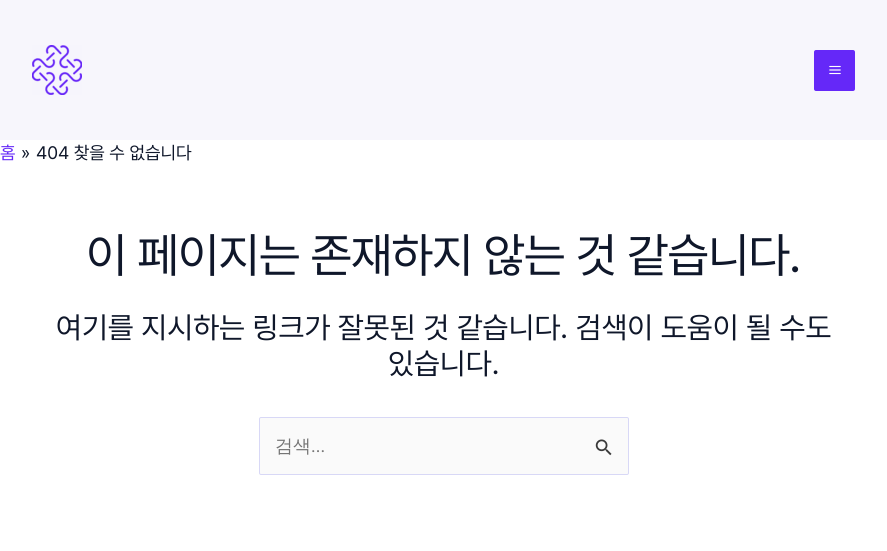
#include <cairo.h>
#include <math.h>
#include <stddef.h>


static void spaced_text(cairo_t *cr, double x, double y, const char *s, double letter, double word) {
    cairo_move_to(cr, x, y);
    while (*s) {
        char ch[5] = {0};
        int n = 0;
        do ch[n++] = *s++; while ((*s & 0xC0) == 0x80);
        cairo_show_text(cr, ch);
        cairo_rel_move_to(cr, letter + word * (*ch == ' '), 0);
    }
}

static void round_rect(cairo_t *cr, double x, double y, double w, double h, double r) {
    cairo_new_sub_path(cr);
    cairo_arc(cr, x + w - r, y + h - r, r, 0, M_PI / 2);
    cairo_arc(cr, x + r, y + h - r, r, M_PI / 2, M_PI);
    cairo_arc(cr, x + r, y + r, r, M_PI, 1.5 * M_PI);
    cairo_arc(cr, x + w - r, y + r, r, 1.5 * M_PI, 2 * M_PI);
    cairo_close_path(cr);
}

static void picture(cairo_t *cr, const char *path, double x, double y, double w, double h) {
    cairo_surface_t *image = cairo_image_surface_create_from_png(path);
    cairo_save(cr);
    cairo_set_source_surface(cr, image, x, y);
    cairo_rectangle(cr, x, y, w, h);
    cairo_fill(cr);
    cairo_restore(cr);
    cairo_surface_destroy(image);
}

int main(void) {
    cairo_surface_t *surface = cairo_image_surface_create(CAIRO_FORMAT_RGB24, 887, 551);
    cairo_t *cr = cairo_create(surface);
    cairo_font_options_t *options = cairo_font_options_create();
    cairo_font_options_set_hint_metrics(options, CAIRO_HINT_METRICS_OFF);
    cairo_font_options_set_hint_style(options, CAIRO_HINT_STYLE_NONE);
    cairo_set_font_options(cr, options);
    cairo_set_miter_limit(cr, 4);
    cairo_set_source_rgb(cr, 1, 1, 1);
    cairo_paint(cr);
    cairo_set_source_rgb(cr, 0.965, 0.961, 0.988);
    cairo_rectangle(cr, 0, 0, 887, 140);
    cairo_fill(cr);
    picture(cr, "img1.png", 32, 45, 50, 50);
    cairo_set_source_rgb(cr, 0.396, 0.157, 0.969);
    round_rect(cr, 814, 50, 41, 41, 2);
    cairo_fill(cr);
    picture(cr, "img2.png", 829, 65, 12, 10);
    cairo_select_font_face(cr, "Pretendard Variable", CAIRO_FONT_SLANT_NORMAL, CAIRO_FONT_WEIGHT_NORMAL);
    cairo_set_font_size(cr, 18);
    cairo_move_to(cr, 0, 159);
    cairo_show_text(cr, "홈");
    cairo_set_source_rgb(cr, 0.059, 0.09, 0.165);
    cairo_move_to(cr, 21, 159);
    cairo_show_text(cr, "»");
    cairo_move_to(cr, 36, 159);
    cairo_show_text(cr, "404 찾을 수 없습니다");
    cairo_set_font_size(cr, 48);
    spaced_text(cr, 86, 272, "이 페이지는 존재하지 않는 것 같습니다.", -1, 0);
    cairo_set_font_size(cr, 30);
    cairo_move_to(cr, 56, 338);
    cairo_show_text(cr, "여기를 지시하는 링크가 잘못된 것 같습니다. 검색이 도움이 될 수도");
    cairo_move_to(cr, 388, 374);
    cairo_show_text(cr, "있습니다.");
    cairo_set_source_rgb(cr, 0.98, 0.98, 0.98);
    round_rect(cr, 259.5, 417.5, 369, 57, 1.5);
    cairo_fill_preserve(cr);
    cairo_set_source_rgb(cr, 0.847, 0.847, 0.961);
    cairo_set_line_width(cr, 1);
    cairo_stroke(cr);
    cairo_select_font_face(cr, "WenQuanYi Zen Hei Medium", CAIRO_FONT_SLANT_NORMAL, CAIRO_FONT_WEIGHT_NORMAL);
    cairo_set_font_size(cr, 18);
    cairo_set_source_rgb(cr, 0.459, 0.459, 0.459);
    cairo_move_to(cr, 275, 452);
    cairo_show_text(cr, "검색");
    cairo_select_font_face(cr, "Roboto", CAIRO_FONT_SLANT_NORMAL, CAIRO_FONT_WEIGHT_NORMAL);
    cairo_move_to(cr, 311, 452);
    cairo_show_text(cr, "...");
    picture(cr, "img3.png", 595, 439, 17, 17);
    cairo_surface_write_to_png(surface, "page.png");
    cairo_font_options_destroy(options);
    cairo_destroy(cr);
    cairo_surface_destroy(surface);
    return 0;
}
